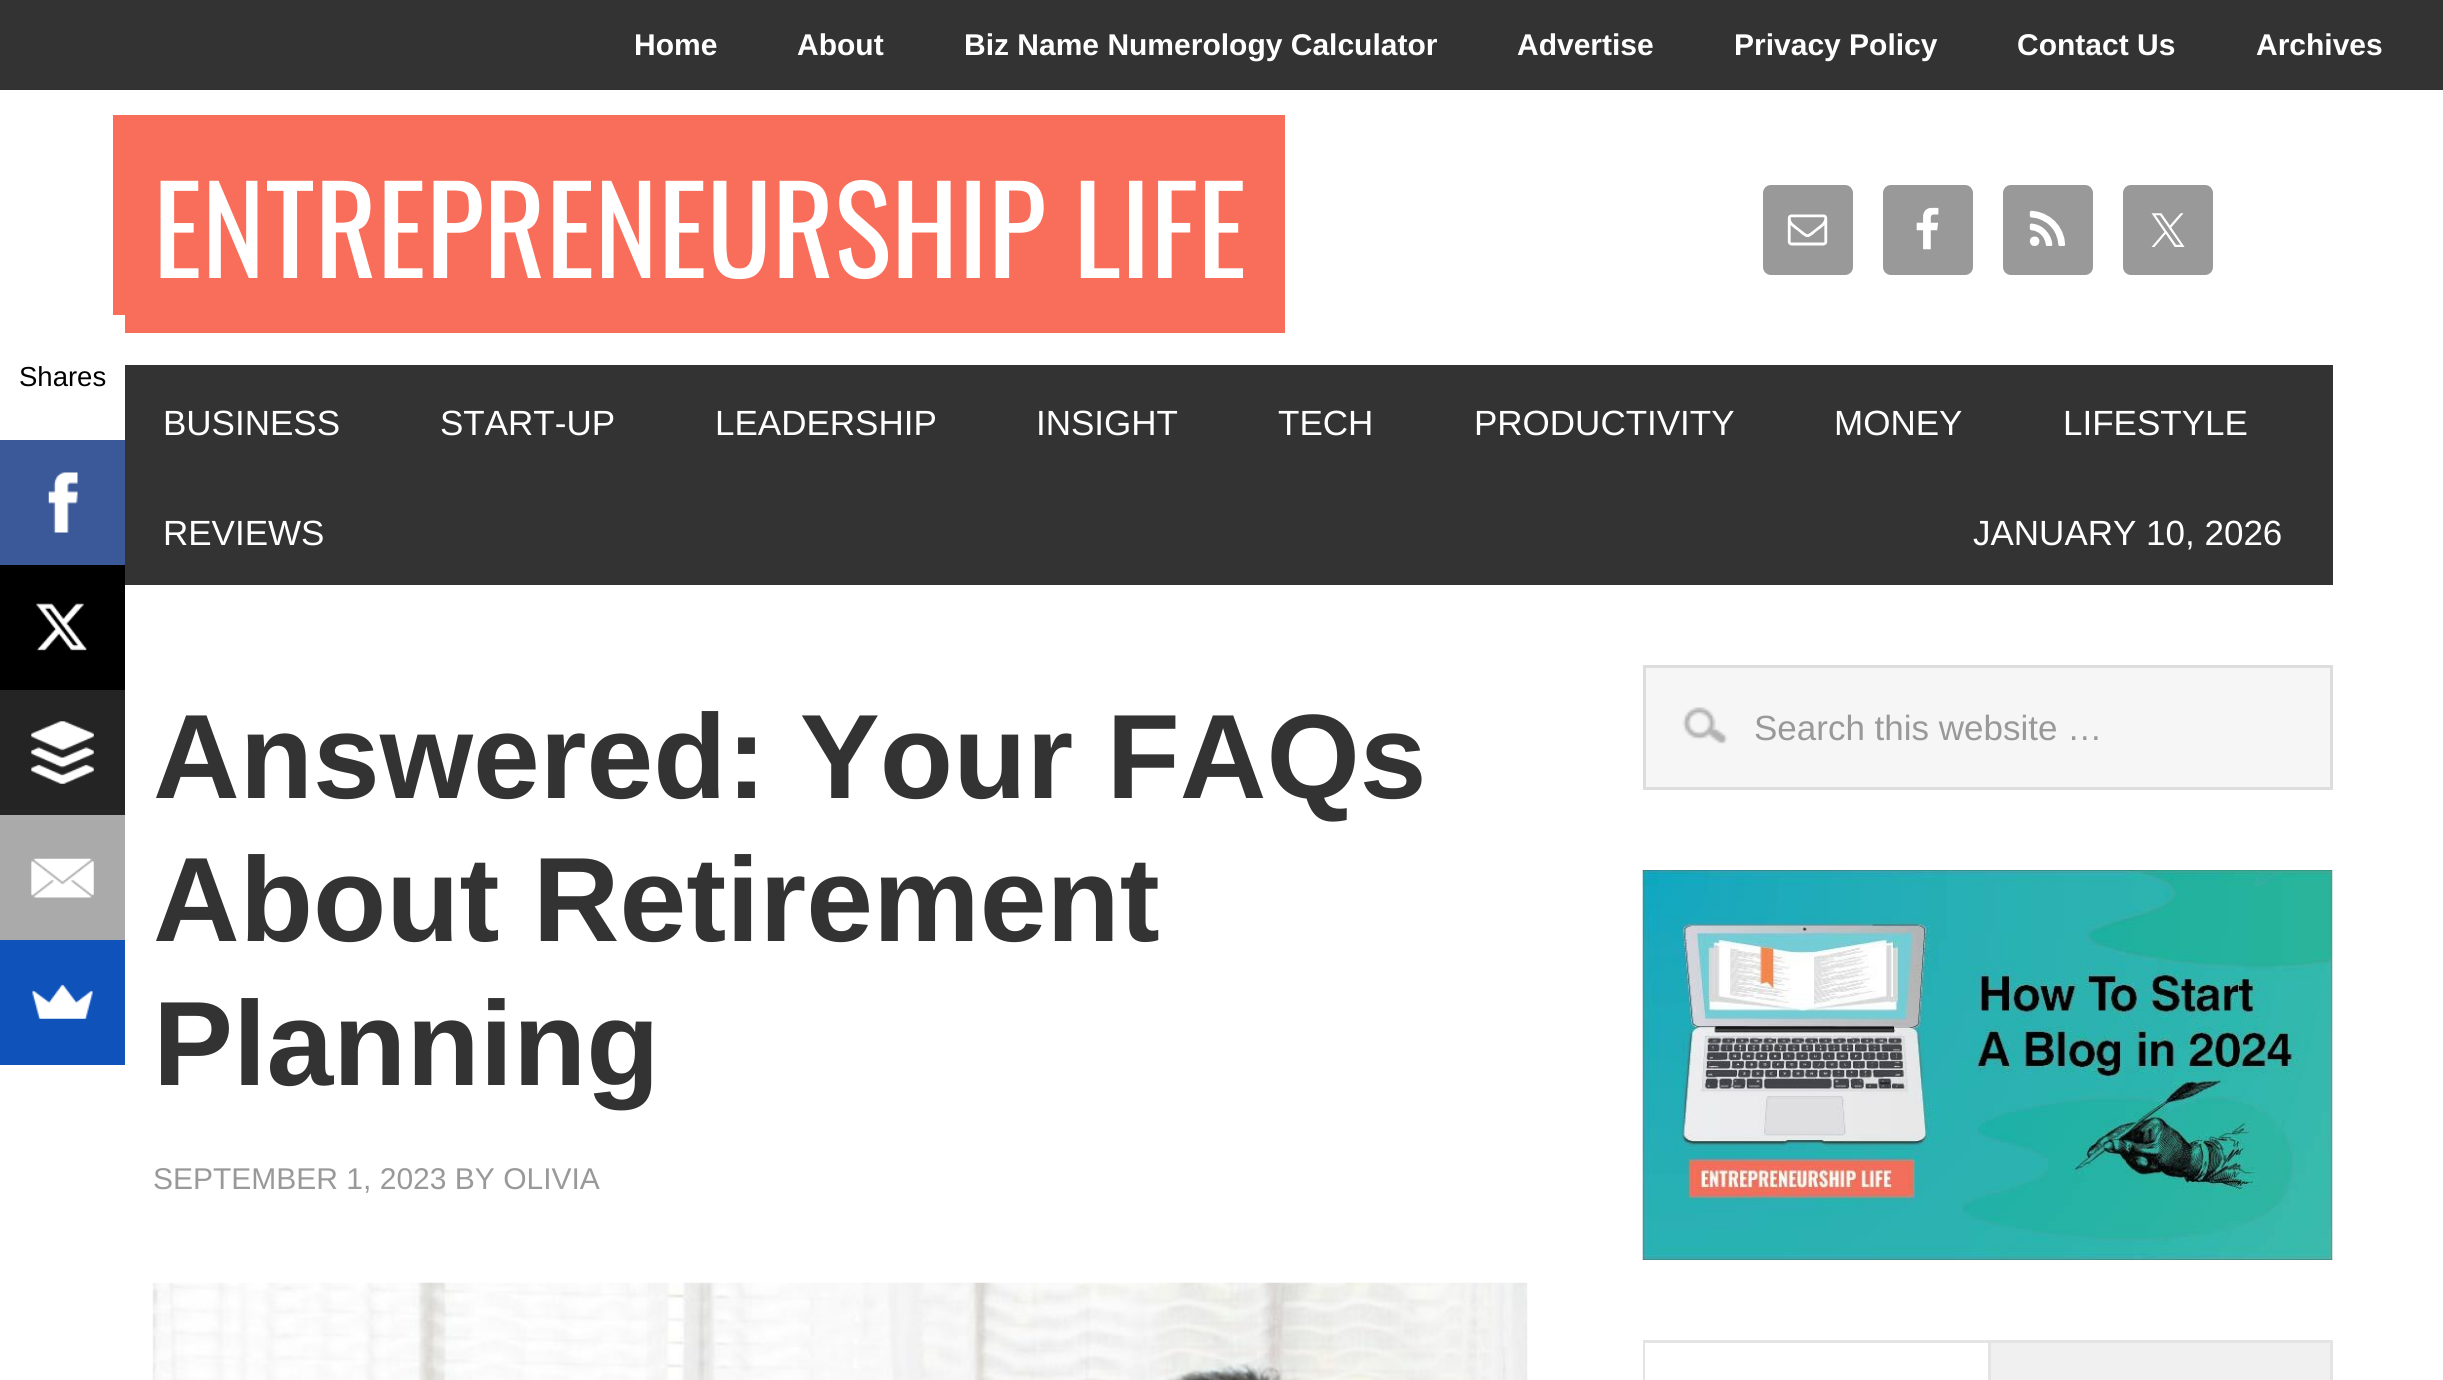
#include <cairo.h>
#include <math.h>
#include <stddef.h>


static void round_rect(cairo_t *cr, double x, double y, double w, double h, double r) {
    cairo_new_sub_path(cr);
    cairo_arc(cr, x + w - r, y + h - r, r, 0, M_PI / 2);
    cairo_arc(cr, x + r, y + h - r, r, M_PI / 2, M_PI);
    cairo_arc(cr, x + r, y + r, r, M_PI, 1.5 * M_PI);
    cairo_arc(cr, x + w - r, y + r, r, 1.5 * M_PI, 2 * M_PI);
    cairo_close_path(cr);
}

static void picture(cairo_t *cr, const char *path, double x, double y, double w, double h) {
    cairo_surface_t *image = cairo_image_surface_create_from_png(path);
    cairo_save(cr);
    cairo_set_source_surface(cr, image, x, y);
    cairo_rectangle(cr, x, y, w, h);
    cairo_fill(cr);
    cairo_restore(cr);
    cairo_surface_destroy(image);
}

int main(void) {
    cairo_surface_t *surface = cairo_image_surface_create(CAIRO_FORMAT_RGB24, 2443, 1380);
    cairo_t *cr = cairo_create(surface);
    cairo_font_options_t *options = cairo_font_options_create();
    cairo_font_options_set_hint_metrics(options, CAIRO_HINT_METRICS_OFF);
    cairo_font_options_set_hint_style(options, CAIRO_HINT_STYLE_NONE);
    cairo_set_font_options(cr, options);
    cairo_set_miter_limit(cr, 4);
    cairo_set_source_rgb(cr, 1, 1, 1);
    cairo_paint(cr);
    cairo_set_source_rgb(cr, 0.2, 0.2, 0.2);
    cairo_rectangle(cr, 0, 0, 2443, 90);
    cairo_fill(cr);
    cairo_select_font_face(cr, "Liberation Sans", CAIRO_FONT_SLANT_NORMAL, CAIRO_FONT_WEIGHT_BOLD);
    cairo_set_font_size(cr, 30);
    cairo_set_source_rgb(cr, 1, 1, 1);
    cairo_move_to(cr, 634, 55);
    cairo_show_text(cr, "Home");
    cairo_move_to(cr, 797, 55);
    cairo_show_text(cr, "About");
    cairo_move_to(cr, 964, 55);
    cairo_show_text(cr, "Biz Name Numerology Calculator");
    cairo_move_to(cr, 1517, 55);
    cairo_show_text(cr, "Advertise");
    cairo_move_to(cr, 1734, 55);
    cairo_show_text(cr, "Privacy Policy");
    cairo_move_to(cr, 2017, 55);
    cairo_show_text(cr, "Contact Us");
    cairo_move_to(cr, 2256, 55);
    cairo_show_text(cr, "Archives");
    cairo_set_source_rgb(cr, 0.976, 0.431, 0.357);
    cairo_rectangle(cr, 113, 115, 1172, 218);
    cairo_fill(cr);
    cairo_set_source_rgb(cr, 1, 1, 1);
    cairo_rectangle(cr, 113, 315, 12, 18);
    cairo_fill(cr);
    cairo_select_font_face(cr, "Liberation Sans", CAIRO_FONT_SLANT_NORMAL, CAIRO_FONT_WEIGHT_NORMAL);
    cairo_set_font_size(cr, 27.5);
    cairo_set_source_rgb(cr, 0, 0, 0);
    cairo_move_to(cr, 19, 386);
    cairo_show_text(cr, "Shares");
    cairo_set_source_rgb(cr, 0.231, 0.349, 0.596);
    cairo_rectangle(cr, 0, 440, 125, 125);
    cairo_fill(cr);
    picture(cr, "img1.png", 48, 472, 30, 61);
    cairo_set_source_rgb(cr, 0, 0, 0);
    cairo_rectangle(cr, 0, 565, 125, 125);
    cairo_fill(cr);
    picture(cr, "img2.png", 36, 603, 51, 48);
    cairo_set_source_rgb(cr, 0.141, 0.141, 0.141);
    cairo_rectangle(cr, 0, 690, 125, 125);
    cairo_fill(cr);
    picture(cr, "img3.png", 31, 721, 63, 63);
    cairo_set_source_rgb(cr, 0.667, 0.667, 0.667);
    cairo_rectangle(cr, 0, 815, 125, 125);
    cairo_fill(cr);
    picture(cr, "img4.png", 31, 858, 63, 40);
    cairo_set_source_rgb(cr, 0.059, 0.322, 0.729);
    cairo_rectangle(cr, 0, 940, 125, 125);
    cairo_fill(cr);
    picture(cr, "img5.png", 32, 984, 61, 35);
    cairo_select_font_face(cr, "Oswald", CAIRO_FONT_SLANT_NORMAL, CAIRO_FONT_WEIGHT_NORMAL);
    cairo_set_font_size(cr, 120);
    cairo_set_source_rgb(cr, 1, 1, 1);
    cairo_move_to(cr, 153, 278);
    cairo_show_text(cr, "ENTREPRENEURSHIP LIFE");
    cairo_set_source_rgb(cr, 0.6, 0.6, 0.6);
    round_rect(cr, 1763, 185, 90, 90, 8);
    cairo_fill(cr);
    picture(cr, "img6.png", 1787, 214, 41, 32);
    round_rect(cr, 1883, 185, 90, 90, 8);
    cairo_fill(cr);
    picture(cr, "img7.png", 1916, 207, 23, 43);
    round_rect(cr, 2003, 185, 90, 90, 8);
    cairo_fill(cr);
    picture(cr, "img8.png", 2029, 210, 37, 36);
    round_rect(cr, 2123, 185, 90, 90, 8);
    cairo_fill(cr);
    picture(cr, "img9.png", 2151, 213, 34, 34);
    cairo_set_source_rgb(cr, 0.2, 0.2, 0.2);
    cairo_rectangle(cr, 125, 365, 2208, 220);
    cairo_fill(cr);
    cairo_select_font_face(cr, "Liberation Sans", CAIRO_FONT_SLANT_NORMAL, CAIRO_FONT_WEIGHT_NORMAL);
    cairo_set_font_size(cr, 35);
    cairo_set_source_rgb(cr, 1, 1, 1);
    cairo_move_to(cr, 163, 435);
    cairo_show_text(cr, "BUSINESS");
    cairo_move_to(cr, 440, 435);
    cairo_show_text(cr, "START-UP");
    cairo_move_to(cr, 715, 435);
    cairo_show_text(cr, "LEADERSHIP");
    cairo_move_to(cr, 1036, 435);
    cairo_show_text(cr, "INSIGHT");
    cairo_move_to(cr, 1278, 435);
    cairo_show_text(cr, "TECH");
    cairo_move_to(cr, 1474, 435);
    cairo_show_text(cr, "PRODUCTIVITY");
    cairo_move_to(cr, 1834, 435);
    cairo_show_text(cr, "MONEY");
    cairo_move_to(cr, 2063, 435);
    cairo_show_text(cr, "LIFESTYLE");
    cairo_move_to(cr, 163, 545);
    cairo_show_text(cr, "REVIEWS");
    cairo_move_to(cr, 1973, 545);
    cairo_show_text(cr, "JANUARY 10, 2026");
    cairo_select_font_face(cr, "Liberation Sans", CAIRO_FONT_SLANT_NORMAL, CAIRO_FONT_WEIGHT_BOLD);
    cairo_set_font_size(cr, 120);
    cairo_set_source_rgb(cr, 0.2, 0.2, 0.2);
    cairo_move_to(cr, 153, 798);
    cairo_show_text(cr, "Answered: Your FAQs");
    cairo_move_to(cr, 153, 941);
    cairo_show_text(cr, "About Retirement");
    cairo_move_to(cr, 153, 1085);
    cairo_show_text(cr, "Planning");
    cairo_select_font_face(cr, "Liberation Sans", CAIRO_FONT_SLANT_NORMAL, CAIRO_FONT_WEIGHT_NORMAL);
    cairo_set_font_size(cr, 30);
    cairo_set_source_rgb(cr, 0.6, 0.6, 0.6);
    cairo_move_to(cr, 153, 1189);
    cairo_show_text(cr, "SEPTEMBER 1, 2023 BY OLIVIA");
    picture(cr, "img10.png", 152, 1282, 1376, 98);
    cairo_set_source_rgb(cr, 0.961, 0.961, 0.961);
    cairo_rectangle(cr, 1646, 668, 684, 119);
    cairo_fill(cr);
    picture(cr, "img11.png", 1682, 707, 46, 37);
    cairo_rectangle(cr, 1644.5, 666.5, 687, 122);
    cairo_set_source_rgb(cr, 0.867, 0.867, 0.867);
    cairo_set_line_width(cr, 3);
    cairo_stroke(cr);
    cairo_set_font_size(cr, 35);
    cairo_set_source_rgb(cr, 0.6, 0.6, 0.6);
    cairo_move_to(cr, 1754, 740);
    cairo_show_text(cr, "Search this website …");
    picture(cr, "img12.png", 1642, 870, 691, 390);
    cairo_rectangle(cr, 1644.5, 1341.5, 687, 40);
    cairo_set_source_rgb(cr, 0.894, 0.894, 0.894);
    cairo_stroke(cr);
    cairo_set_source_rgb(cr, 1, 1, 1);
    cairo_rectangle(cr, 1645, 1343, 1, 37);
    cairo_fill(cr);
    cairo_set_source_rgb(cr, 0.941, 0.941, 0.941);
    cairo_rectangle(cr, 1991, 1343, 339, 37);
    cairo_fill(cr);
    cairo_set_source_rgb(cr, 0.894, 0.894, 0.894);
    cairo_rectangle(cr, 1988, 1343, 3, 37);
    cairo_fill(cr);
    cairo_surface_write_to_png(surface, "page.png");
    cairo_font_options_destroy(options);
    cairo_destroy(cr);
    cairo_surface_destroy(surface);
    return 0;
}
